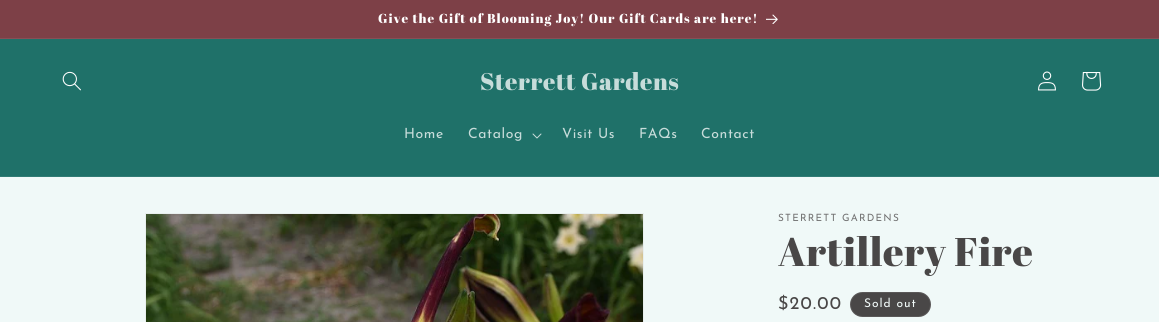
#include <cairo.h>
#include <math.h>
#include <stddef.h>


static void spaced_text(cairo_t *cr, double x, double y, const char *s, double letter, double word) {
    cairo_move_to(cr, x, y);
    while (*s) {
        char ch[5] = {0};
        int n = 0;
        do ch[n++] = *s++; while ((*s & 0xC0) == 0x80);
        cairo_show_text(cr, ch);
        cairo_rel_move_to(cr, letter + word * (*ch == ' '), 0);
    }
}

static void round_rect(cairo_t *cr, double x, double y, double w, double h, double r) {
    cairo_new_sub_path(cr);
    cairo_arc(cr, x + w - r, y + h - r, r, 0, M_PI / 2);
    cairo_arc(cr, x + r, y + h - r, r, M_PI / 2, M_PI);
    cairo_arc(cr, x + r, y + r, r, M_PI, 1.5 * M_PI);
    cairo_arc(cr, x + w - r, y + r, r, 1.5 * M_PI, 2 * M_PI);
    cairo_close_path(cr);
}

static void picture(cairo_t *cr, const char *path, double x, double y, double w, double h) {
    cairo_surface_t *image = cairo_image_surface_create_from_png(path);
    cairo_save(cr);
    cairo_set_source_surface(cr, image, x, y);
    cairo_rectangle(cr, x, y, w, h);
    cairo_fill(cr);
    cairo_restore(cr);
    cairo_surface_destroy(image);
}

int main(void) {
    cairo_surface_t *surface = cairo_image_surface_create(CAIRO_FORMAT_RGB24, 1159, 322);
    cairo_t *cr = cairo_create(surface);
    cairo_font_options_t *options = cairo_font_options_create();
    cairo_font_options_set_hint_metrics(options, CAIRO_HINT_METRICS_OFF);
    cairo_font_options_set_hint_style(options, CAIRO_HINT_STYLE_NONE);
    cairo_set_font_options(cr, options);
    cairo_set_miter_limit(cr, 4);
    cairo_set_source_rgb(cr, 0.941, 0.973, 0.969);
    cairo_paint(cr);
    cairo_set_source_rgb(cr, 0.49, 0.251, 0.278);
    cairo_rectangle(cr, 0, 0, 1159, 38);
    cairo_fill(cr);
    cairo_set_source_rgb(cr, 0.529, 0.31, 0.337);
    cairo_rectangle(cr, 0, 38, 1159, 1);
    cairo_fill(cr);
    cairo_select_font_face(cr, "Abril Fatface", CAIRO_FONT_SLANT_NORMAL, CAIRO_FONT_WEIGHT_NORMAL);
    cairo_set_font_size(cr, 13);
    cairo_set_source_rgb(cr, 1, 1, 1);
    spaced_text(cr, 378, 23, "Give the Gift of Blooming Joy! Our Gift Cards are here!", 1, 0);
    picture(cr, "img1.png", 766, 14, 12, 10);
    cairo_set_source_rgb(cr, 0.122, 0.443, 0.412);
    cairo_rectangle(cr, 0, 39, 1159, 137);
    cairo_fill(cr);
    cairo_set_source_rgb(cr, 0.192, 0.486, 0.459);
    cairo_rectangle(cr, 0, 176, 1159, 1);
    cairo_fill(cr);
    picture(cr, "img2.png", 62, 71, 19, 20);
    cairo_set_font_size(cr, 24);
    cairo_set_source_rgb(cr, 0.78, 0.863, 0.855);
    spaced_text(cr, 480, 90, "Sterrett Gardens", 0.6, 0);
    picture(cr, "img3.png", 1038, 71, 18, 20);
    picture(cr, "img4.png", 1082, 72, 20, 19);
    cairo_select_font_face(cr, "Josefin Sans", CAIRO_FONT_SLANT_NORMAL, CAIRO_FONT_WEIGHT_NORMAL);
    cairo_set_font_size(cr, 14);
    spaced_text(cr, 404, 138, "Home", 0.6, 0);
    spaced_text(cr, 468, 138, "Catalog", 0.6, 0);
    picture(cr, "img5.png", 532, 133, 10, 6);
    spaced_text(cr, 562, 138, "Visit Us", 0.6, 0);
    spaced_text(cr, 639, 138, "FAQs", 0.6, 0);
    spaced_text(cr, 701, 138, "Contact", 0.6, 0);
    cairo_rectangle(cr, 145.5, 213.5, 498, 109);
    cairo_set_source_rgb(cr, 0.91, 0.937, 0.933);
    cairo_set_line_width(cr, 1);
    cairo_stroke(cr);
    picture(cr, "img6.png", 146, 214, 497, 108);
    cairo_set_font_size(cr, 10);
    cairo_set_source_rgb(cr, 0.451, 0.451, 0.451);
    spaced_text(cr, 778, 221, "STERRETT GARDENS", 1.25, 0);
    cairo_select_font_face(cr, "Abril Fatface", CAIRO_FONT_SLANT_NORMAL, CAIRO_FONT_WEIGHT_NORMAL);
    cairo_set_font_size(cr, 40);
    cairo_set_source_rgb(cr, 0.286, 0.278, 0.278);
    spaced_text(cr, 778, 266, "Artillery Fire", 0.6, 0);
    cairo_select_font_face(cr, "Josefin Sans", CAIRO_FONT_SLANT_NORMAL, CAIRO_FONT_WEIGHT_NORMAL);
    cairo_set_font_size(cr, 18);
    spaced_text(cr, 778, 309, "$20.00", 1.25, 0);
    round_rect(cr, 850, 292, 81, 25, 12.5);
    cairo_fill(cr);
    round_rect(cr, 850.5, 292.5, 80, 24, 12);
    cairo_set_source_rgba(cr, 0.941, 0.973, 0.969, 0.1);
    cairo_stroke(cr);
    cairo_set_font_size(cr, 12);
    cairo_set_source_rgb(cr, 0.941, 0.973, 0.969);
    spaced_text(cr, 864, 307, "Sold out", 1, 0);
    cairo_surface_write_to_png(surface, "page.png");
    cairo_font_options_destroy(options);
    cairo_destroy(cr);
    cairo_surface_destroy(surface);
    return 0;
}
